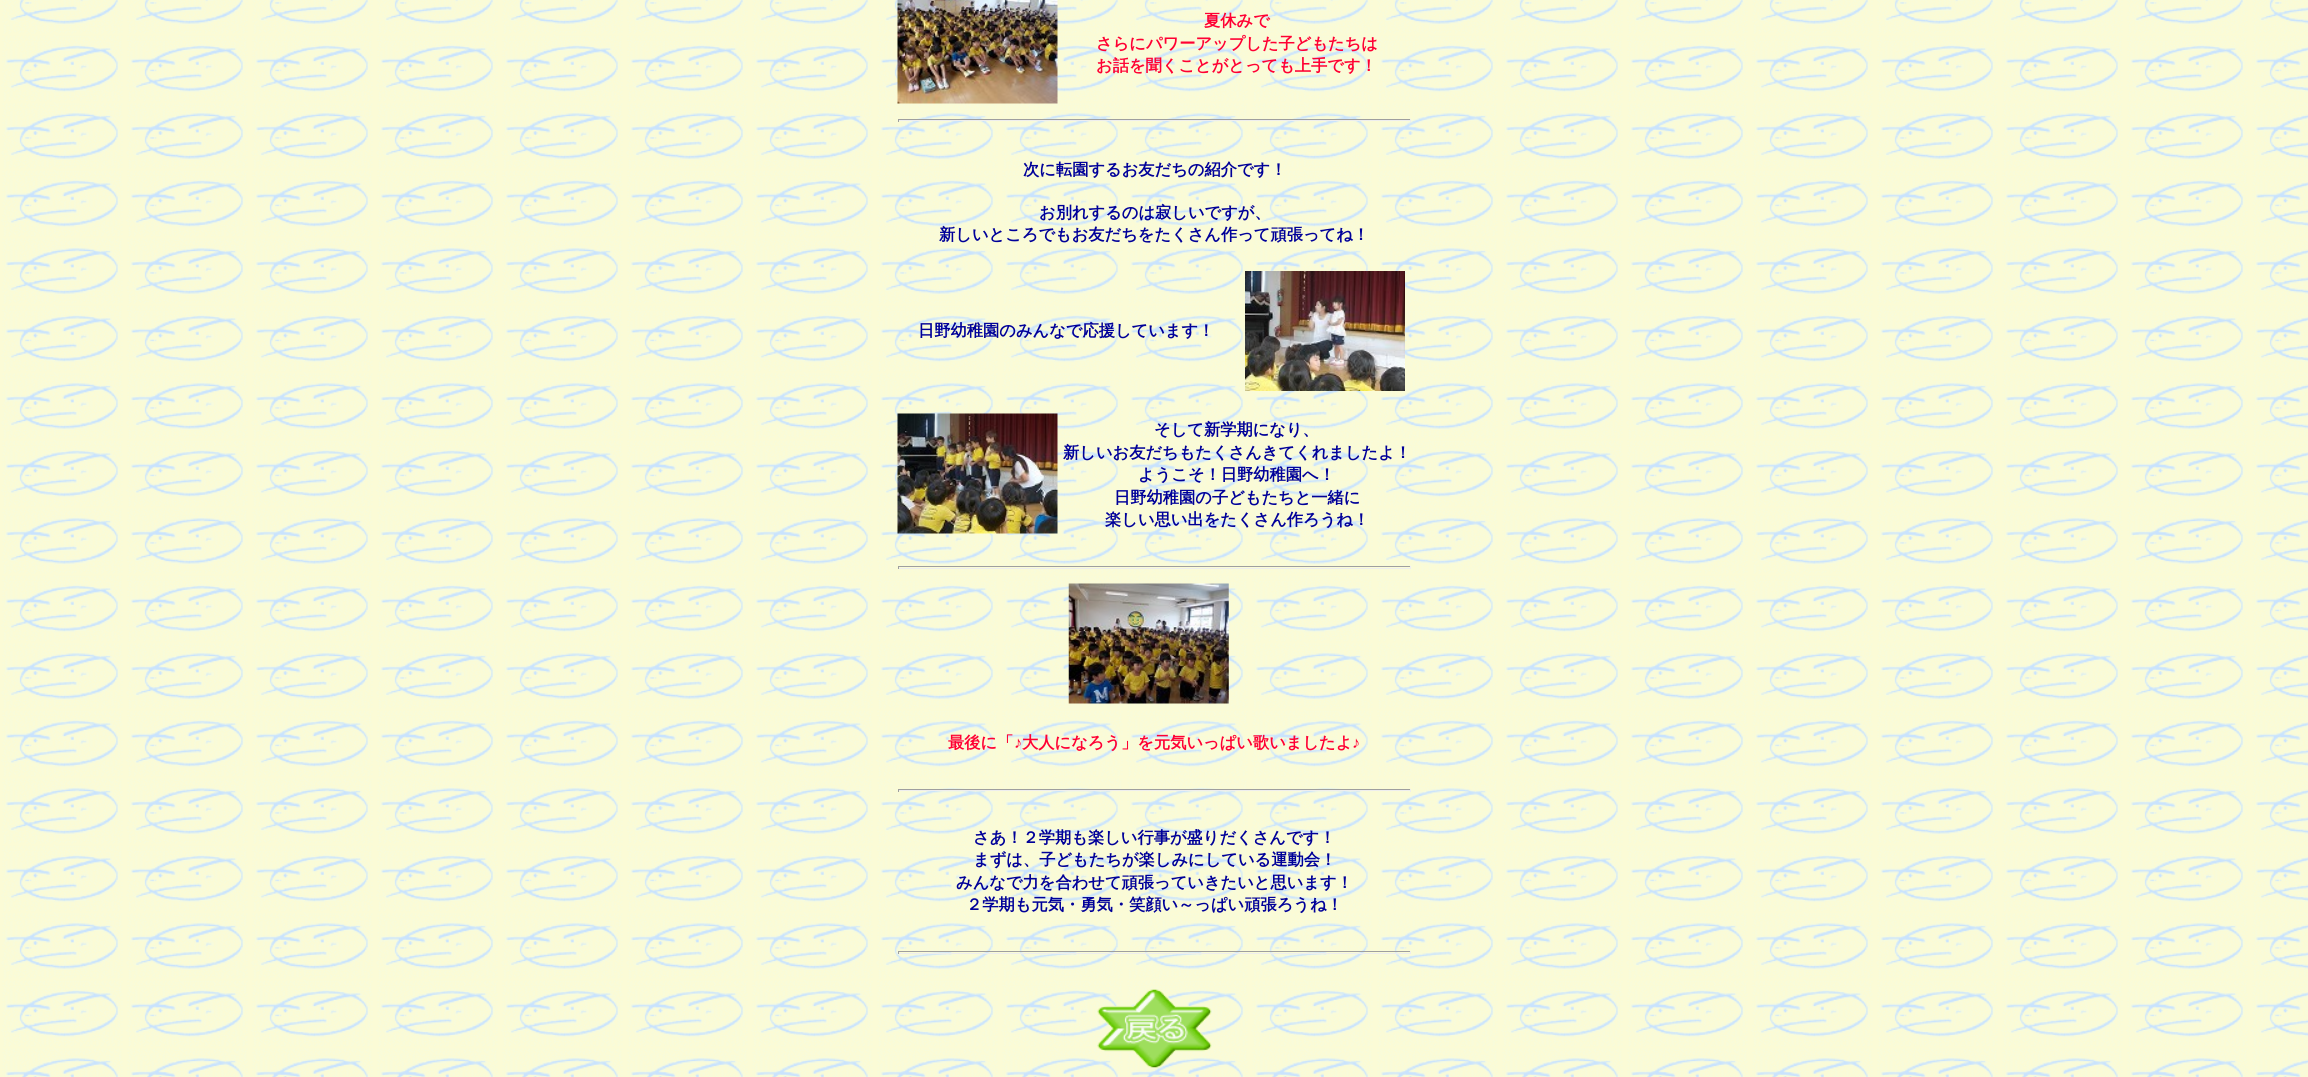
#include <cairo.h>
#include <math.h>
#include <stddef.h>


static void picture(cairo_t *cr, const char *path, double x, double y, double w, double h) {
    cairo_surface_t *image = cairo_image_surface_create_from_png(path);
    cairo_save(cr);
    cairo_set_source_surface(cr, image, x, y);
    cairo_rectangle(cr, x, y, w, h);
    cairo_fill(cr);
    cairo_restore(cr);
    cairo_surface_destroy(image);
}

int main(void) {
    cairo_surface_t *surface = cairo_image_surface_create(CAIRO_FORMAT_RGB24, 2308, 1077);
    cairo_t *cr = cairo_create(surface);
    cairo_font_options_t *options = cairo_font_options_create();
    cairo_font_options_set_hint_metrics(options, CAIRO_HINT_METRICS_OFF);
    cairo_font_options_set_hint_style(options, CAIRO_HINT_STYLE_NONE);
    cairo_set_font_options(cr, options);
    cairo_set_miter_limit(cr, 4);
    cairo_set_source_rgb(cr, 1, 1, 1);
    cairo_paint(cr);
    picture(cr, "img1.png", 0, 0, 2308, 1077);
    picture(cr, "img2.png", 897, 0, 161, 104);
    cairo_select_font_face(cr, "WenQuanYi Zen Hei", CAIRO_FONT_SLANT_NORMAL, CAIRO_FONT_WEIGHT_BOLD);
    cairo_set_font_size(cr, 16.25);
    cairo_set_source_rgb(cr, 1, 0, 0.2);
    cairo_move_to(cr, 1204, 26);
    cairo_show_text(cr, "夏休みで");
    cairo_move_to(cr, 1096, 49);
    cairo_show_text(cr, "さらにパワーアップした子どもたちは");
    cairo_move_to(cr, 1096, 71);
    cairo_show_text(cr, "お話を聞くことがとっても上手です！");
    cairo_set_source_rgb(cr, 0.624, 0.624, 0.624);
    cairo_rectangle(cr, 898, 119, 513, 1);
    cairo_fill(cr);
    cairo_set_source_rgb(cr, 0.933, 0.933, 0.933);
    cairo_rectangle(cr, 1410, 119, 1, 3);
    cairo_fill(cr);
    cairo_rectangle(cr, 898, 120, 513, 1);
    cairo_fill(cr);
    cairo_set_source_rgb(cr, 0.624, 0.624, 0.624);
    cairo_rectangle(cr, 898, 119, 1, 3);
    cairo_fill(cr);
    cairo_set_source_rgb(cr, 0, 0, 0.6);
    cairo_move_to(cr, 1023, 175);
    cairo_show_text(cr, "次に転園するお友だちの紹介です！");
    cairo_move_to(cr, 1039, 218);
    cairo_show_text(cr, "お別れするのは寂しいですが、");
    cairo_move_to(cr, 939, 240);
    cairo_show_text(cr, "新しいところでもお友だちをたくさん作って頑張ってね！");
    cairo_move_to(cr, 918, 336);
    cairo_show_text(cr, "日野幼稚園のみんなで応援しています！");
    picture(cr, "img3.png", 1245, 271, 160, 120);
    picture(cr, "img4.png", 897, 413, 161, 121);
    cairo_move_to(cr, 1154, 435);
    cairo_show_text(cr, "そして新学期になり、");
    cairo_move_to(cr, 1063, 458);
    cairo_show_text(cr, "新しいお友だちもたくさんきてくれましたよ！");
    cairo_move_to(cr, 1138, 480);
    cairo_show_text(cr, "ようこそ！日野幼稚園へ！");
    cairo_move_to(cr, 1114, 503);
    cairo_show_text(cr, "日野幼稚園の子どもたちと一緒に");
    cairo_move_to(cr, 1105, 525);
    cairo_show_text(cr, "楽しい思い出をたくさん作ろうね！");
    cairo_set_source_rgb(cr, 0.624, 0.624, 0.624);
    cairo_rectangle(cr, 898, 566, 513, 1);
    cairo_fill(cr);
    cairo_set_source_rgb(cr, 0.933, 0.933, 0.933);
    cairo_rectangle(cr, 1410, 566, 1, 3);
    cairo_fill(cr);
    cairo_rectangle(cr, 898, 568, 513, 1);
    cairo_fill(cr);
    cairo_set_source_rgb(cr, 0.624, 0.624, 0.624);
    cairo_rectangle(cr, 898, 566, 1, 3);
    cairo_fill(cr);
    picture(cr, "img5.png", 1068, 583, 161, 121);
    cairo_set_source_rgb(cr, 1, 0, 0.2);
    cairo_move_to(cr, 948, 748);
    cairo_show_text(cr, "最後に「");
    cairo_select_font_face(cr, "Liberation Serif", CAIRO_FONT_SLANT_NORMAL, CAIRO_FONT_WEIGHT_BOLD);
    cairo_move_to(cr, 1014, 748);
    cairo_show_text(cr, "♪");
    cairo_select_font_face(cr, "WenQuanYi Zen Hei", CAIRO_FONT_SLANT_NORMAL, CAIRO_FONT_WEIGHT_BOLD);
    cairo_move_to(cr, 1022, 748);
    cairo_show_text(cr, "大人になろう」を元気いっぱい歌いましたよ");
    cairo_select_font_face(cr, "Liberation Serif", CAIRO_FONT_SLANT_NORMAL, CAIRO_FONT_WEIGHT_BOLD);
    cairo_move_to(cr, 1352, 748);
    cairo_show_text(cr, "♪");
    cairo_set_source_rgb(cr, 0.624, 0.624, 0.624);
    cairo_rectangle(cr, 898, 789, 513, 1);
    cairo_fill(cr);
    cairo_set_source_rgb(cr, 0.933, 0.933, 0.933);
    cairo_rectangle(cr, 1410, 789, 1, 3);
    cairo_fill(cr);
    cairo_rectangle(cr, 898, 790, 513, 1);
    cairo_fill(cr);
    cairo_set_source_rgb(cr, 0.624, 0.624, 0.624);
    cairo_rectangle(cr, 898, 789, 1, 3);
    cairo_fill(cr);
    cairo_select_font_face(cr, "WenQuanYi Zen Hei", CAIRO_FONT_SLANT_NORMAL, CAIRO_FONT_WEIGHT_BOLD);
    cairo_set_source_rgb(cr, 0, 0, 0.6);
    cairo_move_to(cr, 973, 843);
    cairo_show_text(cr, "さあ！２学期も楽しい行事が盛りだくさんです！");
    cairo_move_to(cr, 973, 865);
    cairo_show_text(cr, "まずは、子どもたちが楽しみにしている運動会！");
    cairo_move_to(cr, 956, 888);
    cairo_show_text(cr, "みんなで力を合わせて頑張っていきたいと思います！");
    cairo_move_to(cr, 966, 910);
    cairo_show_text(cr, "２学期も元気・勇気・笑顔い～っぱい頑張ろうね！");
    cairo_set_source_rgb(cr, 0.624, 0.624, 0.624);
    cairo_rectangle(cr, 898, 951, 513, 1);
    cairo_fill(cr);
    cairo_set_source_rgb(cr, 0.933, 0.933, 0.933);
    cairo_rectangle(cr, 1410, 951, 1, 3);
    cairo_fill(cr);
    cairo_rectangle(cr, 898, 953, 513, 1);
    cairo_fill(cr);
    cairo_set_source_rgb(cr, 0.624, 0.624, 0.624);
    cairo_rectangle(cr, 898, 951, 1, 3);
    cairo_fill(cr);
    picture(cr, "img6.png", 1097, 989, 115, 79);
    cairo_surface_write_to_png(surface, "page.png");
    cairo_font_options_destroy(options);
    cairo_destroy(cr);
    cairo_surface_destroy(surface);
    return 0;
}
